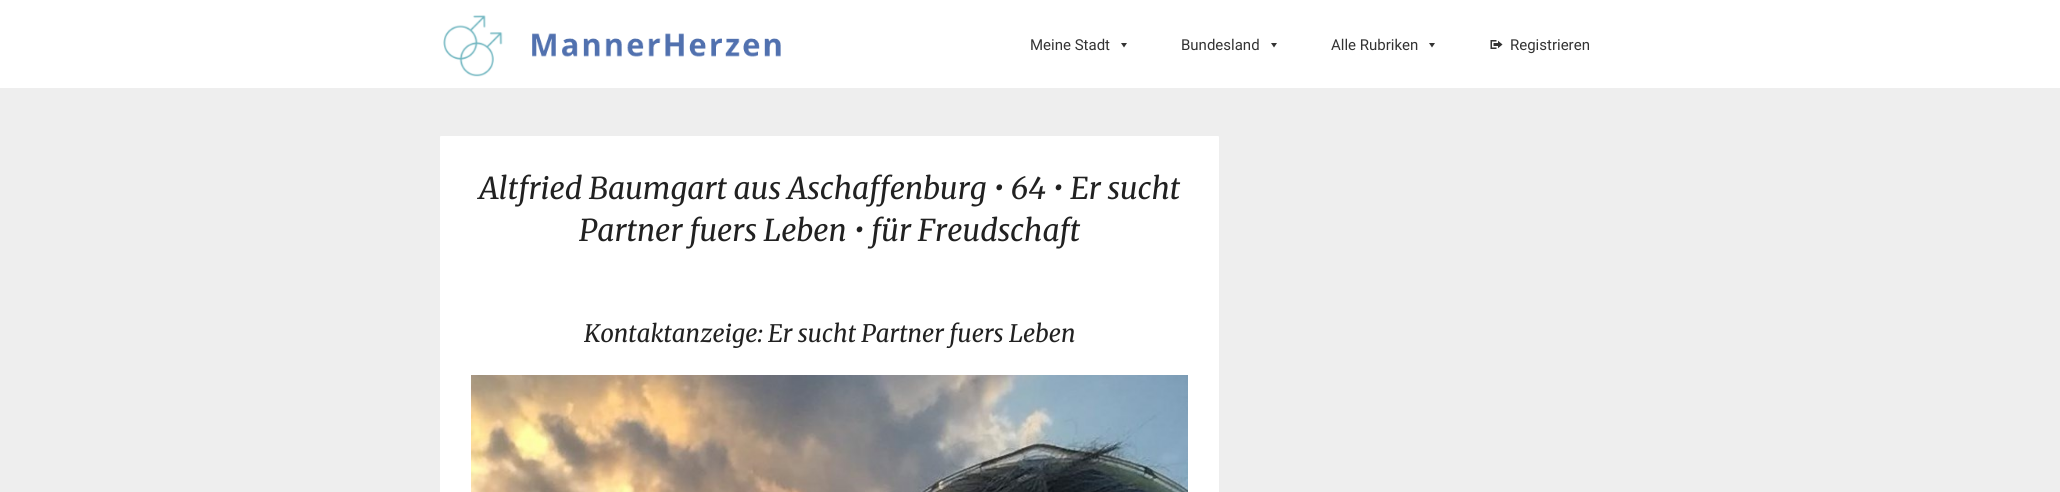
#include <cairo.h>
#include <math.h>
#include <stddef.h>


static void round_rect(cairo_t *cr, double x, double y, double w, double h, double r) {
    cairo_new_sub_path(cr);
    cairo_arc(cr, x + w - r, y + h - r, r, 0, M_PI / 2);
    cairo_arc(cr, x + r, y + h - r, r, M_PI / 2, M_PI);
    cairo_arc(cr, x + r, y + r, r, M_PI, 1.5 * M_PI);
    cairo_arc(cr, x + w - r, y + r, r, 1.5 * M_PI, 2 * M_PI);
    cairo_close_path(cr);
}

static void picture(cairo_t *cr, const char *path, double x, double y, double w, double h) {
    cairo_surface_t *image = cairo_image_surface_create_from_png(path);
    cairo_save(cr);
    cairo_set_source_surface(cr, image, x, y);
    cairo_rectangle(cr, x, y, w, h);
    cairo_fill(cr);
    cairo_restore(cr);
    cairo_surface_destroy(image);
}

int main(void) {
    cairo_surface_t *surface = cairo_image_surface_create(CAIRO_FORMAT_RGB24, 2060, 492);
    cairo_t *cr = cairo_create(surface);
    cairo_font_options_t *options = cairo_font_options_create();
    cairo_font_options_set_hint_metrics(options, CAIRO_HINT_METRICS_OFF);
    cairo_font_options_set_hint_style(options, CAIRO_HINT_STYLE_NONE);
    cairo_set_font_options(cr, options);
    cairo_set_miter_limit(cr, 4);
    cairo_set_source_rgb(cr, 0.933, 0.933, 0.933);
    cairo_paint(cr);
    cairo_set_source_rgb(cr, 1, 1, 1);
    cairo_rectangle(cr, 0, 0, 2060, 88);
    cairo_fill(cr);
    picture(cr, "img1.png", 443, 15, 338, 62);
    cairo_select_font_face(cr, "Roboto", CAIRO_FONT_SLANT_NORMAL, CAIRO_FONT_WEIGHT_NORMAL);
    cairo_set_font_size(cr, 15);
    cairo_set_source_rgb(cr, 0.2, 0.2, 0.2);
    cairo_move_to(cr, 1030, 50);
    cairo_show_text(cr, "Meine Stadt");
    cairo_new_path(cr);
    cairo_move_to(cr, 1127, 43);
    cairo_line_to(cr, 1124, 47.5);
    cairo_line_to(cr, 1121, 43);
    cairo_close_path(cr);
    cairo_fill(cr);
    cairo_move_to(cr, 1181, 50);
    cairo_show_text(cr, "Bundesland");
    cairo_new_path(cr);
    cairo_move_to(cr, 1277, 43);
    cairo_line_to(cr, 1274, 47.5);
    cairo_line_to(cr, 1271, 43);
    cairo_close_path(cr);
    cairo_fill(cr);
    cairo_move_to(cr, 1331, 50);
    cairo_show_text(cr, "Alle Rubriken");
    cairo_new_path(cr);
    cairo_move_to(cr, 1435, 43);
    cairo_line_to(cr, 1432, 47.5);
    cairo_line_to(cr, 1429, 43);
    cairo_close_path(cr);
    cairo_fill(cr);
    picture(cr, "img2.png", 1490, 40, 13, 9);
    cairo_move_to(cr, 1510, 50);
    cairo_show_text(cr, "Registrieren");
    cairo_set_source_rgb(cr, 1, 1, 1);
    round_rect(cr, 440, 136, 779, 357, 1);
    cairo_fill(cr);
    cairo_select_font_face(cr, "Merriweather Light", CAIRO_FONT_SLANT_ITALIC, CAIRO_FONT_WEIGHT_NORMAL);
    cairo_set_font_size(cr, 30);
    cairo_set_source_rgb(cr, 0.129, 0.129, 0.129);
    cairo_move_to(cr, 479, 199);
    cairo_show_text(cr, "Altfried Baumgart aus Aschaffenburg • 64 • Er sucht");
    cairo_move_to(cr, 579, 241);
    cairo_show_text(cr, "Partner fuers Leben • für Freudschaft");
    cairo_set_font_size(cr, 24);
    cairo_move_to(cr, 584, 342);
    cairo_show_text(cr, "Kontaktanzeige: Er sucht Partner fuers Leben");
    picture(cr, "img3.png", 471, 375, 717, 117);
    cairo_surface_write_to_png(surface, "page.png");
    cairo_font_options_destroy(options);
    cairo_destroy(cr);
    cairo_surface_destroy(surface);
    return 0;
}
